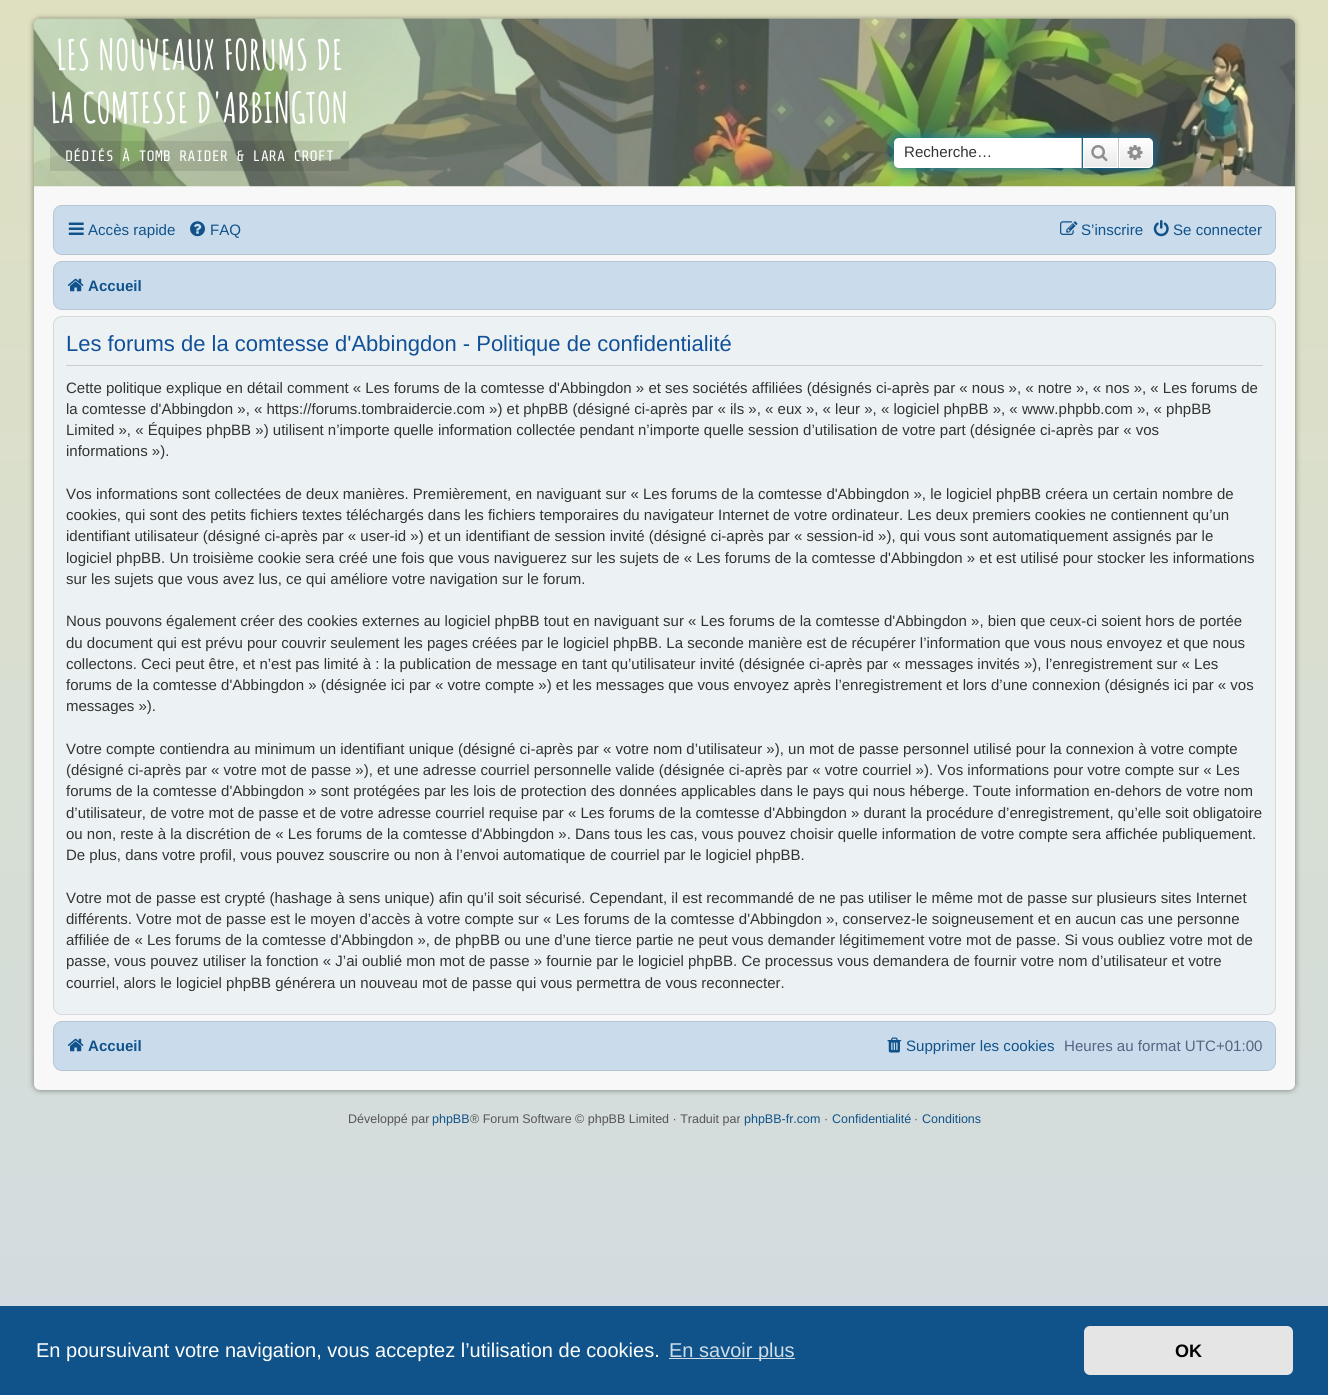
#include <cairo.h>
#include <math.h>
#include <stddef.h>


static void round_rect(cairo_t *cr, double x, double y, double w, double h, double r) {
    cairo_new_sub_path(cr);
    cairo_arc(cr, x + w - r, y + h - r, r, 0, M_PI / 2);
    cairo_arc(cr, x + r, y + h - r, r, M_PI / 2, M_PI);
    cairo_arc(cr, x + r, y + r, r, M_PI, 1.5 * M_PI);
    cairo_arc(cr, x + w - r, y + r, r, 1.5 * M_PI, 2 * M_PI);
    cairo_close_path(cr);
}

static void shadow(cairo_t *cr, double x, double y, double w, double h, double r, double blur, double alpha) {
    cairo_push_group_with_content(cr, CAIRO_CONTENT_ALPHA);
    cairo_set_operator(cr, CAIRO_OPERATOR_SOURCE);
    for (int i = 15; i >= -15 && fmin(w, h) + blur * i / 3 > 0; i -= 2) {
        double e = blur * i / 6;
        cairo_set_source_rgba(cr, 0, 0, 0, alpha * erfc((i - 1) / 8.5) / 2);
        round_rect(cr, x - e, y - e, w + 2 * e, h + 2 * e, fmax(0, fmin(r + e + blur * .6, fmin(w, h) / 2 + e)));
        cairo_fill(cr);
    }
    cairo_pattern_t *soft = cairo_pop_group(cr);
    cairo_mask(cr, soft);
    cairo_pattern_destroy(soft);
}

static void picture(cairo_t *cr, const char *path, double x, double y, double w, double h) {
    cairo_surface_t *image = cairo_image_surface_create_from_png(path);
    cairo_save(cr);
    cairo_set_source_surface(cr, image, x, y);
    cairo_rectangle(cr, x, y, w, h);
    cairo_fill(cr);
    cairo_restore(cr);
    cairo_surface_destroy(image);
}

int main(void) {
    cairo_surface_t *surface = cairo_image_surface_create(CAIRO_FORMAT_RGB24, 1328, 1395);
    cairo_t *cr = cairo_create(surface);
    cairo_font_options_t *options = cairo_font_options_create();
    cairo_font_options_set_hint_metrics(options, CAIRO_HINT_METRICS_OFF);
    cairo_font_options_set_hint_style(options, CAIRO_HINT_STYLE_NONE);
    cairo_set_font_options(cr, options);
    cairo_set_miter_limit(cr, 4);
    cairo_pattern_t *gradient;
    cairo_set_source_rgb(cr, 1, 1, 1);
    cairo_paint(cr);
    gradient = cairo_pattern_create_linear(664, 0, 664, 1395);
    cairo_pattern_add_color_stop_rgba(gradient, 0, 0.875, 0.878, 0.753, 1);
    cairo_pattern_add_color_stop_rgba(gradient, 1, 0.82, 0.863, 0.886, 1);
    cairo_set_source(cr, gradient);
    cairo_pattern_destroy(gradient);
    cairo_rectangle(cr, 0, 0, 1328, 1306);
    cairo_fill(cr);
    cairo_set_source_rgb(cr, 0, 0, 0);
    shadow(cr, 34, 19, 1261, 1071, 6, 3, 0.45);
    cairo_set_source_rgb(cr, 0.969, 0.969, 0.969);
    round_rect(cr, 34, 19, 1261, 1071, 6);
    cairo_fill(cr);
    picture(cr, "img1.png", 33, 18, 1262, 169);
    cairo_select_font_face(cr, "Amatic SC", CAIRO_FONT_SLANT_NORMAL, CAIRO_FONT_WEIGHT_BOLD);
    cairo_set_font_size(cr, 41.25);
    cairo_set_source_rgb(cr, 1, 1, 1);
    cairo_move_to(cr, 56, 70);
    cairo_show_text(cr, "LES NOUVEAUX FORUMS DE");
    cairo_move_to(cr, 50, 123);
    cairo_show_text(cr, "LA COMTESSE D'ABBINGTON");
    cairo_set_source_rgba(cr, 0, 0, 0, 0.1);
    cairo_rectangle(cr, 50, 141, 299, 30);
    cairo_fill(cr);
    cairo_select_font_face(cr, "Share Tech Mono", CAIRO_FONT_SLANT_NORMAL, CAIRO_FONT_WEIGHT_NORMAL);
    cairo_set_font_size(cr, 15.1);
    cairo_set_source_rgb(cr, 1, 1, 1);
    cairo_move_to(cr, 65, 161);
    cairo_show_text(cr, "DÉDIÉS À TOMB RAIDER & LARA CROFT");
    cairo_set_source_rgb(cr, 0, 0.459, 0.69);
    shadow(cr, 894, 138, 259, 30, 5, 6, 1);
    cairo_set_source_rgb(cr, 1, 1, 1);
    cairo_new_path(cr);
    cairo_move_to(cr, 899, 138);
    cairo_line_to(cr, 1081, 138);
    cairo_line_to(cr, 1081, 168);
    cairo_line_to(cr, 899, 168);
    cairo_curve_to(cr, 896, 168, 894, 166, 894, 163);
    cairo_line_to(cr, 894, 143);
    cairo_curve_to(cr, 894, 140, 896, 138, 899, 138);
    cairo_close_path(cr);
    cairo_fill(cr);
    cairo_select_font_face(cr, "Liberation Sans", CAIRO_FONT_SLANT_NORMAL, CAIRO_FONT_WEIGHT_NORMAL);
    cairo_set_source_rgb(cr, 0.2, 0.2, 0.2);
    cairo_move_to(cr, 904, 157);
    cairo_show_text(cr, "Recherche…");
    gradient = cairo_pattern_create_linear(1100, 138, 1100, 168);
    cairo_pattern_add_color_stop_rgba(gradient, 0, 1, 1, 1, 1);
    cairo_pattern_add_color_stop_rgba(gradient, 1, 0.914, 0.914, 0.914, 1);
    cairo_set_source(cr, gradient);
    cairo_pattern_destroy(gradient);
    cairo_rectangle(cr, 1084, 139, 33, 28);
    cairo_fill(cr);
    cairo_rectangle(cr, 1083.5, 138.5, 34, 29);
    cairo_set_source_rgb(cr, 1, 1, 1);
    cairo_set_line_width(cr, 1);
    cairo_stroke(cr);
    cairo_set_source_rgb(cr, 0.78, 0.765, 0.749);
    cairo_rectangle(cr, 1118, 138, 1, 30);
    cairo_fill(cr);
    cairo_rectangle(cr, 1081, 138, 1, 30);
    cairo_fill(cr);
    picture(cr, "img2.png", 1091, 145, 17, 17);
    gradient = cairo_pattern_create_linear(1136, 138, 1136, 168);
    cairo_pattern_add_color_stop_rgba(gradient, 0, 1, 1, 1, 1);
    cairo_pattern_add_color_stop_rgba(gradient, 1, 0.914, 0.914, 0.914, 1);
    cairo_set_source(cr, gradient);
    cairo_pattern_destroy(gradient);
    cairo_new_path(cr);
    cairo_move_to(cr, 1119.5, 138.5);
    cairo_line_to(cr, 1148, 138.5);
    cairo_curve_to(cr, 1150.5, 138.5, 1152.5, 140.5, 1152.5, 143);
    cairo_line_to(cr, 1152.5, 163);
    cairo_curve_to(cr, 1152.5, 165.5, 1150.5, 167.5, 1148, 167.5);
    cairo_line_to(cr, 1119.5, 167.5);
    cairo_close_path(cr);
    cairo_fill_preserve(cr);
    cairo_set_source_rgb(cr, 1, 1, 1);
    cairo_stroke(cr);
    picture(cr, "img3.png", 1127, 145, 16, 15);
    cairo_set_source_rgb(cr, 0.792, 0.863, 0.922);
    round_rect(cr, 53, 205, 1223, 50, 9);
    cairo_fill(cr);
    round_rect(cr, 53.5, 205.5, 1222, 49, 8.5);
    cairo_set_source_rgba(cr, 0, 0, 0, 0.1);
    cairo_stroke(cr);
    picture(cr, "img4.png", 68, 222, 16, 13);
    cairo_set_source_rgb(cr, 0.063, 0.322, 0.537);
    cairo_move_to(cr, 88, 235);
    cairo_show_text(cr, "Accès rapide");
    picture(cr, "img5.png", 190, 221, 15, 16);
    cairo_move_to(cr, 210, 235);
    cairo_show_text(cr, "FAQ");
    picture(cr, "img6.png", 1060, 221, 18, 14);
    cairo_move_to(cr, 1081, 235);
    cairo_show_text(cr, "S’inscrire");
    picture(cr, "img7.png", 1153, 220, 16, 17);
    cairo_move_to(cr, 1173, 235);
    cairo_show_text(cr, "Se connecter");
    cairo_set_source_rgb(cr, 0.792, 0.863, 0.922);
    round_rect(cr, 53, 261, 1223, 49, 9);
    cairo_fill(cr);
    round_rect(cr, 53.5, 261.5, 1222, 48, 8.5);
    cairo_set_source_rgba(cr, 0, 0, 0, 0.1);
    cairo_stroke(cr);
    picture(cr, "img8.png", 67, 278, 17, 14);
    cairo_select_font_face(cr, "Liberation Sans", CAIRO_FONT_SLANT_NORMAL, CAIRO_FONT_WEIGHT_BOLD);
    cairo_set_source_rgb(cr, 0.063, 0.322, 0.537);
    cairo_move_to(cr, 88, 291);
    cairo_show_text(cr, "Accueil");
    cairo_set_source_rgb(cr, 0.925, 0.945, 0.953);
    round_rect(cr, 53, 316, 1223, 699, 9);
    cairo_fill(cr);
    round_rect(cr, 53.5, 316.5, 1222, 698, 8.5);
    cairo_set_source_rgba(cr, 0, 0, 0, 0.1);
    cairo_stroke(cr);
    cairo_set_source_rgb(cr, 0.8, 0.8, 0.8);
    cairo_rectangle(cr, 66, 365, 1197, 1);
    cairo_fill(cr);
    cairo_select_font_face(cr, "Liberation Sans", CAIRO_FONT_SLANT_NORMAL, CAIRO_FONT_WEIGHT_NORMAL);
    cairo_set_font_size(cr, 22);
    cairo_set_source_rgb(cr, 0.067, 0.314, 0.596);
    cairo_move_to(cr, 66, 351);
    cairo_show_text(cr, "Les forums de la comtesse d'Abbingdon - Politique de confidentialité");
    cairo_set_font_size(cr, 15);
    cairo_set_source_rgb(cr, 0.2, 0.2, 0.2);
    cairo_move_to(cr, 66, 393);
    cairo_show_text(cr, "Cette politique explique en détail comment « Les forums de la comtesse d'Abbingdon » et ses sociétés affiliées (désignés ci-après par « nous », « notre », « nos », « Les forums de");
    cairo_move_to(cr, 66, 414);
    cairo_show_text(cr, "la comtesse d'Abbingdon », « https://forums.tombraidercie.com ») et phpBB (désigné ci-après par « ils », « eux », « leur », « logiciel phpBB », « www.phpbb.com », « phpBB");
    cairo_move_to(cr, 66, 435);
    cairo_show_text(cr, "Limited », « Équipes phpBB ») utilisent n’importe quelle information collectée pendant n’importe quelle session d’utilisation de votre part (désignée ci-après par « vos");
    cairo_move_to(cr, 66, 456);
    cairo_show_text(cr, "informations »).");
    cairo_move_to(cr, 66, 499);
    cairo_show_text(cr, "Vos informations sont collectées de deux manières. Premièrement, en naviguant sur « Les forums de la comtesse d'Abbingdon », le logiciel phpBB créera un certain nombre de");
    cairo_move_to(cr, 66, 520);
    cairo_show_text(cr, "cookies, qui sont des petits fichiers textes téléchargés dans les fichiers temporaires du navigateur Internet de votre ordinateur. Les deux premiers cookies ne contiennent qu’un");
    cairo_move_to(cr, 66, 541);
    cairo_show_text(cr, "identifiant utilisateur (désigné ci-après par « user-id ») et un identifiant de session invité (désigné ci-après par « session-id »), qui vous sont automatiquement assignés par le");
    cairo_move_to(cr, 66, 563);
    cairo_show_text(cr, "logiciel phpBB. Un troisième cookie sera créé une fois que vous naviguerez sur les sujets de « Les forums de la comtesse d'Abbingdon » et est utilisé pour stocker les informations");
    cairo_move_to(cr, 66, 584);
    cairo_show_text(cr, "sur les sujets que vous avez lus, ce qui améliore votre navigation sur le forum.");
    cairo_move_to(cr, 66, 626);
    cairo_show_text(cr, "Nous pouvons également créer des cookies externes au logiciel phpBB tout en naviguant sur « Les forums de la comtesse d'Abbingdon », bien que ceux-ci soient hors de portée");
    cairo_move_to(cr, 66, 648);
    cairo_show_text(cr, "du document qui est prévu pour couvrir seulement les pages créées par le logiciel phpBB. La seconde manière est de récupérer l’information que vous nous envoyez et que nous");
    cairo_move_to(cr, 66, 669);
    cairo_show_text(cr, "collectons. Ceci peut être, et n’est pas limité à : la publication de message en tant qu’utilisateur invité (désignée ci-après par « messages invités »), l’enregistrement sur « Les");
    cairo_move_to(cr, 66, 690);
    cairo_show_text(cr, "forums de la comtesse d'Abbingdon » (désignée ici par « votre compte ») et les messages que vous envoyez après l’enregistrement et lors d’une connexion (désignés ici par « vos");
    cairo_move_to(cr, 66, 711);
    cairo_show_text(cr, "messages »).");
    cairo_move_to(cr, 66, 754);
    cairo_show_text(cr, "Votre compte contiendra au minimum un identifiant unique (désigné ci-après par « votre nom d’utilisateur »), un mot de passe personnel utilisé pour la connexion à votre compte");
    cairo_move_to(cr, 66, 775);
    cairo_show_text(cr, "(désigné ci-après par « votre mot de passe »), et une adresse courriel personnelle valide (désignée ci-après par « votre courriel »). Vos informations pour votre compte sur « Les");
    cairo_move_to(cr, 66, 796);
    cairo_show_text(cr, "forums de la comtesse d'Abbingdon » sont protégées par les lois de protection des données applicables dans le pays qui nous héberge. Toute information en-dehors de votre nom");
    cairo_move_to(cr, 66, 818);
    cairo_show_text(cr, "d’utilisateur, de votre mot de passe et de votre adresse courriel requise par « Les forums de la comtesse d'Abbingdon » durant la procédure d’enregistrement, qu’elle soit obligatoire");
    cairo_move_to(cr, 66, 839);
    cairo_show_text(cr, "ou non, reste à la discrétion de « Les forums de la comtesse d'Abbingdon ». Dans tous les cas, vous pouvez choisir quelle information de votre compte sera affichée publiquement.");
    cairo_move_to(cr, 66, 860);
    cairo_show_text(cr, "De plus, dans votre profil, vous pouvez souscrire ou non à l’envoi automatique de courriel par le logiciel phpBB.");
    cairo_move_to(cr, 66, 903);
    cairo_show_text(cr, "Votre mot de passe est crypté (hashage à sens unique) afin qu’il soit sécurisé. Cependant, il est recommandé de ne pas utiliser le même mot de passe sur plusieurs sites Internet");
    cairo_move_to(cr, 66, 924);
    cairo_show_text(cr, "différents. Votre mot de passe est le moyen d’accès à votre compte sur « Les forums de la comtesse d'Abbingdon », conservez-le soigneusement et en aucun cas une personne");
    cairo_move_to(cr, 66, 945);
    cairo_show_text(cr, "affiliée de « Les forums de la comtesse d'Abbingdon », de phpBB ou une d’une tierce partie ne peut vous demander légitimement votre mot de passe. Si vous oubliez votre mot de");
    cairo_move_to(cr, 66, 966);
    cairo_show_text(cr, "passe, vous pouvez utiliser la fonction « J’ai oublié mon mot de passe » fournie par le logiciel phpBB. Ce processus vous demandera de fournir votre nom d’utilisateur et votre");
    cairo_move_to(cr, 66, 988);
    cairo_show_text(cr, "courriel, alors le logiciel phpBB générera un nouveau mot de passe qui vous permettra de vous reconnecter.");
    cairo_set_source_rgb(cr, 0.792, 0.863, 0.922);
    round_rect(cr, 53, 1021, 1223, 50, 9);
    cairo_fill(cr);
    round_rect(cr, 53.5, 1021.5, 1222, 49, 8.5);
    cairo_set_source_rgba(cr, 0, 0, 0, 0.1);
    cairo_stroke(cr);
    picture(cr, "img8.png", 67, 1038, 17, 14);
    cairo_select_font_face(cr, "Liberation Sans", CAIRO_FONT_SLANT_NORMAL, CAIRO_FONT_WEIGHT_BOLD);
    cairo_set_font_size(cr, 15.1);
    cairo_set_source_rgb(cr, 0.063, 0.322, 0.537);
    cairo_move_to(cr, 88, 1051);
    cairo_show_text(cr, "Accueil");
    picture(cr, "img9.png", 887, 1037, 15, 16);
    cairo_select_font_face(cr, "Liberation Sans", CAIRO_FONT_SLANT_NORMAL, CAIRO_FONT_WEIGHT_NORMAL);
    cairo_move_to(cr, 906, 1051);
    cairo_show_text(cr, "Supprimer les cookies");
    cairo_set_source_rgb(cr, 0.325, 0.392, 0.51);
    cairo_move_to(cr, 1064, 1051);
    cairo_show_text(cr, "Heures au format UTC+01:00");
    cairo_set_font_size(cr, 12.5);
    cairo_set_source_rgb(cr, 0.333, 0.333, 0.333);
    cairo_move_to(cr, 348, 1123);
    cairo_show_text(cr, "Développé par");
    cairo_set_source_rgb(cr, 0.063, 0.322, 0.537);
    cairo_move_to(cr, 432, 1123);
    cairo_show_text(cr, "phpBB");
    cairo_set_source_rgb(cr, 0.333, 0.333, 0.333);
    cairo_move_to(cr, 470, 1123);
    cairo_show_text(cr, "® Forum Software © phpBB Limited · Traduit par");
    cairo_set_source_rgb(cr, 0.063, 0.322, 0.537);
    cairo_move_to(cr, 744, 1123);
    cairo_show_text(cr, "phpBB-fr.com");
    cairo_set_source_rgb(cr, 0.333, 0.333, 0.333);
    cairo_move_to(cr, 824, 1123);
    cairo_show_text(cr, "·");
    cairo_set_source_rgb(cr, 0.063, 0.322, 0.537);
    cairo_move_to(cr, 832, 1123);
    cairo_show_text(cr, "Confidentialité");
    cairo_set_source_rgb(cr, 0.333, 0.333, 0.333);
    cairo_move_to(cr, 914, 1123);
    cairo_show_text(cr, "·");
    cairo_set_source_rgb(cr, 0.063, 0.322, 0.537);
    cairo_move_to(cr, 922, 1123);
    cairo_show_text(cr, "Conditions");
    cairo_set_source_rgb(cr, 0.059, 0.325, 0.541);
    cairo_rectangle(cr, 0, 1306, 1328, 89);
    cairo_fill(cr);
    cairo_set_font_size(cr, 20);
    cairo_set_source_rgb(cr, 1, 1, 1);
    cairo_move_to(cr, 36, 1357);
    cairo_show_text(cr, "En poursuivant votre navigation, vous acceptez l’utilisation de cookies.");
    cairo_set_source_rgb(cr, 0.812, 0.867, 0.91);
    cairo_rectangle(cr, 669, 1358, 126, 1);
    cairo_fill(cr);
    cairo_move_to(cr, 669, 1357);
    cairo_show_text(cr, "En savoir plus");
    cairo_set_source_rgb(cr, 0.898, 0.898, 0.898);
    round_rect(cr, 1084, 1326, 209, 49, 6);
    cairo_fill(cr);
    cairo_select_font_face(cr, "Liberation Sans", CAIRO_FONT_SLANT_NORMAL, CAIRO_FONT_WEIGHT_BOLD);
    cairo_set_font_size(cr, 18);
    cairo_set_source_rgb(cr, 0, 0, 0);
    cairo_move_to(cr, 1175, 1357);
    cairo_show_text(cr, "OK");
    cairo_surface_write_to_png(surface, "page.png");
    cairo_font_options_destroy(options);
    cairo_destroy(cr);
    cairo_surface_destroy(surface);
    return 0;
}
